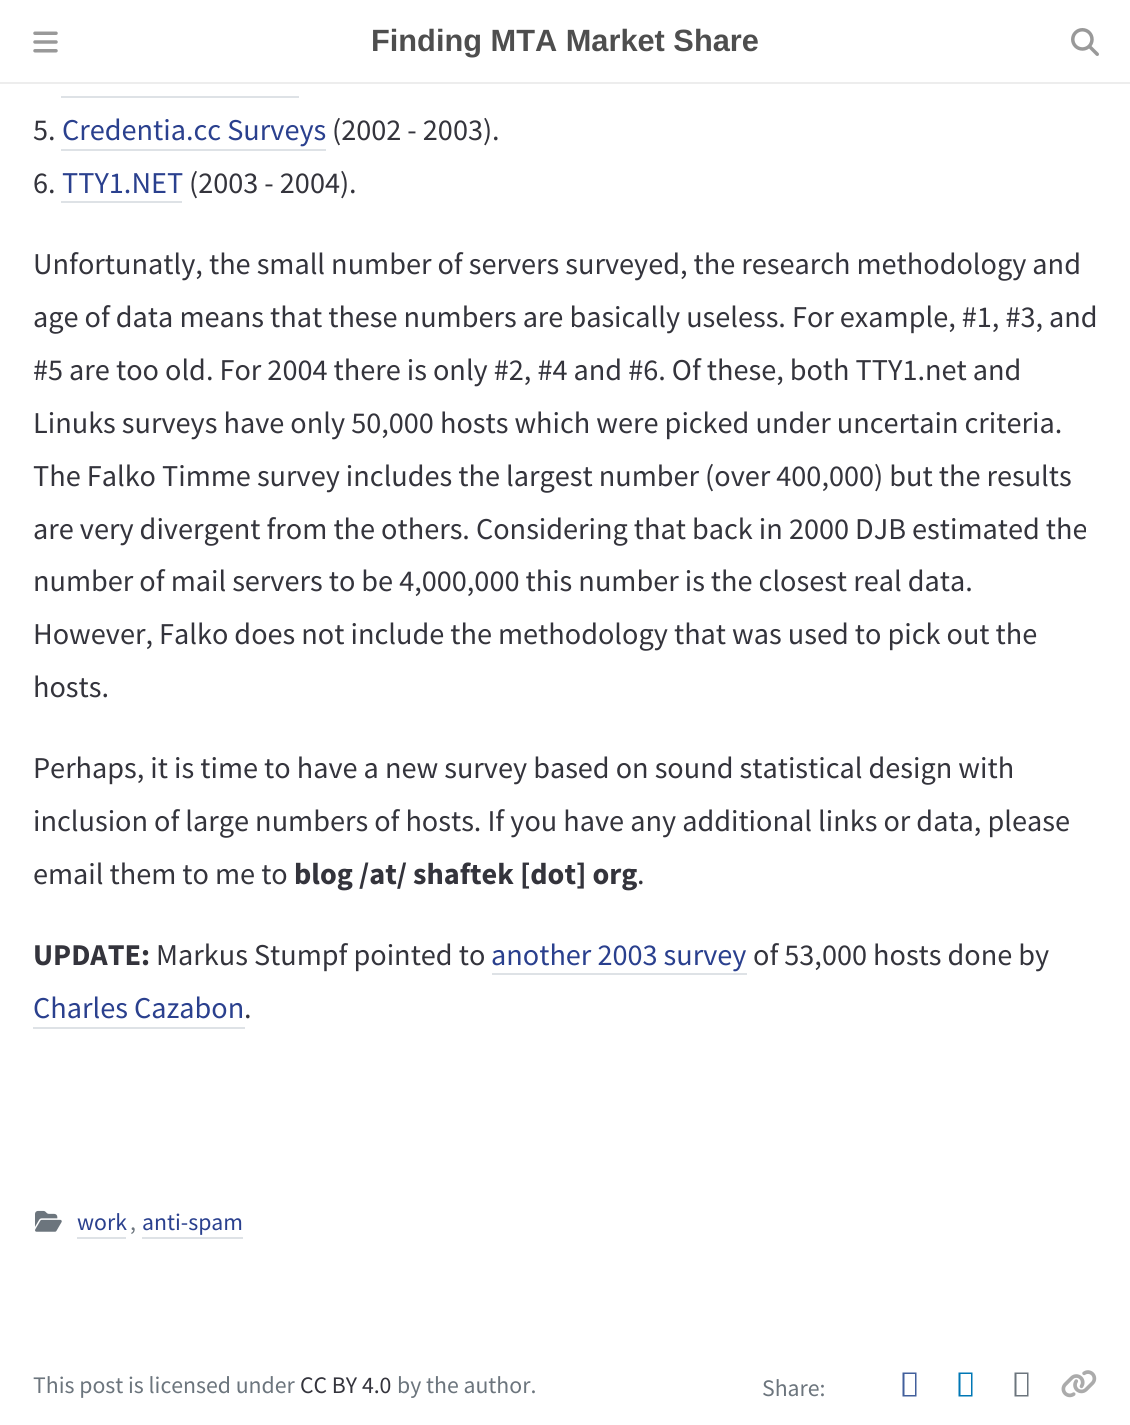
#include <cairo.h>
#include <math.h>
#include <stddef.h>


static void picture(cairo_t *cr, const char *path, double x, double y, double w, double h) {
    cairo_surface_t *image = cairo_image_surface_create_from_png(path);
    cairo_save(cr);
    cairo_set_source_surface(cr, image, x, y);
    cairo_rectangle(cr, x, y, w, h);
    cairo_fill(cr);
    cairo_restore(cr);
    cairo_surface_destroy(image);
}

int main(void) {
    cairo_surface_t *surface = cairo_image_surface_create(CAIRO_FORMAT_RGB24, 1130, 1425);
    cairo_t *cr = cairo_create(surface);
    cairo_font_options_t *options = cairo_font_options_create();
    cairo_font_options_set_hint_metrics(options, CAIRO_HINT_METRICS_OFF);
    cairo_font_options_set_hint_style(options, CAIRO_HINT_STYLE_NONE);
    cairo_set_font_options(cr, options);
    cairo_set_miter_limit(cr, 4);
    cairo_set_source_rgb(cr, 1, 1, 1);
    cairo_paint(cr);
    cairo_set_source_rgb(cr, 0.929, 0.929, 0.929);
    cairo_rectangle(cr, 0, 82, 1130, 2);
    cairo_fill(cr);
    picture(cr, "img1.png", 33, 31, 25, 22);
    cairo_select_font_face(cr, "Liberation Sans", CAIRO_FONT_SLANT_NORMAL, CAIRO_FONT_WEIGHT_BOLD);
    cairo_set_font_size(cr, 30.75);
    cairo_set_source_rgb(cr, 0.306, 0.306, 0.306);
    cairo_move_to(cr, 371, 51);
    cairo_show_text(cr, "Finding MTA Market Share");
    picture(cr, "img2.png", 1071, 28, 28, 28);
    cairo_set_source_rgb(cr, 0.871, 0.886, 0.902);
    cairo_rectangle(cr, 61, 96, 238, 2);
    cairo_fill(cr);
    cairo_select_font_face(cr, "Source Sans Pro", CAIRO_FONT_SLANT_NORMAL, CAIRO_FONT_WEIGHT_NORMAL);
    cairo_set_font_size(cr, 30.25);
    cairo_set_source_rgb(cr, 0.204, 0.204, 0.235);
    cairo_move_to(cr, 33, 140);
    cairo_show_text(cr, "5.");
    cairo_set_source_rgb(cr, 0.165, 0.251, 0.557);
    cairo_move_to(cr, 62, 140);
    cairo_show_text(cr, "Credentia.cc Surveys");
    cairo_set_source_rgb(cr, 0.871, 0.886, 0.902);
    cairo_rectangle(cr, 61, 149, 265, 2);
    cairo_fill(cr);
    cairo_set_source_rgb(cr, 0.204, 0.204, 0.235);
    cairo_move_to(cr, 332, 140);
    cairo_show_text(cr, "(2002 - 2003).");
    cairo_move_to(cr, 33, 193);
    cairo_show_text(cr, "6.");
    cairo_set_source_rgb(cr, 0.165, 0.251, 0.557);
    cairo_move_to(cr, 62, 193);
    cairo_show_text(cr, "TTY1.NET");
    cairo_set_source_rgb(cr, 0.871, 0.886, 0.902);
    cairo_rectangle(cr, 61, 201, 121, 2);
    cairo_fill(cr);
    cairo_set_source_rgb(cr, 0.204, 0.204, 0.235);
    cairo_move_to(cr, 189, 193);
    cairo_show_text(cr, "(2003 - 2004).");
    cairo_move_to(cr, 33, 274);
    cairo_show_text(cr, "Unfortunatly, the small number of servers surveyed, the research methodology and");
    cairo_move_to(cr, 33, 327);
    cairo_show_text(cr, "age of data means that these numbers are basically useless. For example, #1, #3, and");
    cairo_move_to(cr, 33, 380);
    cairo_show_text(cr, "#5 are too old. For 2004 there is only #2, #4 and #6. Of these, both TTY1.net and");
    cairo_move_to(cr, 33, 433);
    cairo_show_text(cr, "Linuks surveys have only 50,000 hosts which were picked under uncertain criteria.");
    cairo_move_to(cr, 33, 486);
    cairo_show_text(cr, "The Falko Timme survey includes the largest number (over 400,000) but the results");
    cairo_move_to(cr, 33, 539);
    cairo_show_text(cr, "are very divergent from the others. Considering that back in 2000 DJB estimated the");
    cairo_move_to(cr, 33, 591);
    cairo_show_text(cr, "number of mail servers to be 4,000,000 this number is the closest real data.");
    cairo_move_to(cr, 33, 644);
    cairo_show_text(cr, "However, Falko does not include the methodology that was used to pick out the");
    cairo_move_to(cr, 33, 697);
    cairo_show_text(cr, "hosts.");
    cairo_move_to(cr, 33, 778);
    cairo_show_text(cr, "Perhaps, it is time to have a new survey based on sound statistical design with");
    cairo_move_to(cr, 33, 831);
    cairo_show_text(cr, "inclusion of large numbers of hosts. If you have any additional links or data, please");
    cairo_move_to(cr, 33, 884);
    cairo_show_text(cr, "email them to me to");
    cairo_select_font_face(cr, "Source Sans Pro", CAIRO_FONT_SLANT_NORMAL, CAIRO_FONT_WEIGHT_BOLD);
    cairo_move_to(cr, 294, 884);
    cairo_show_text(cr, "blog /at/ shaftek [dot] org");
    cairo_select_font_face(cr, "Source Sans Pro", CAIRO_FONT_SLANT_NORMAL, CAIRO_FONT_WEIGHT_NORMAL);
    cairo_move_to(cr, 637, 884);
    cairo_show_text(cr, ".");
    cairo_select_font_face(cr, "Source Sans Pro", CAIRO_FONT_SLANT_NORMAL, CAIRO_FONT_WEIGHT_BOLD);
    cairo_move_to(cr, 33, 965);
    cairo_show_text(cr, "UPDATE:");
    cairo_select_font_face(cr, "Source Sans Pro", CAIRO_FONT_SLANT_NORMAL, CAIRO_FONT_WEIGHT_NORMAL);
    cairo_move_to(cr, 156, 965);
    cairo_show_text(cr, "Markus Stumpf pointed to");
    cairo_set_source_rgb(cr, 0.165, 0.251, 0.557);
    cairo_move_to(cr, 491, 965);
    cairo_show_text(cr, "another 2003 survey");
    cairo_set_source_rgb(cr, 0.871, 0.886, 0.902);
    cairo_rectangle(cr, 492, 973, 255, 2);
    cairo_fill(cr);
    cairo_set_source_rgb(cr, 0.204, 0.204, 0.235);
    cairo_move_to(cr, 753, 965);
    cairo_show_text(cr, "of 53,000 hosts done by");
    cairo_set_source_rgb(cr, 0.165, 0.251, 0.557);
    cairo_move_to(cr, 33, 1018);
    cairo_show_text(cr, "Charles Cazabon");
    cairo_set_source_rgb(cr, 0.871, 0.886, 0.902);
    cairo_rectangle(cr, 33, 1027, 212, 2);
    cairo_fill(cr);
    cairo_set_source_rgb(cr, 0.204, 0.204, 0.235);
    cairo_move_to(cr, 244, 1018);
    cairo_show_text(cr, ".");
    picture(cr, "img3.png", 35, 1210, 27, 22);
    cairo_set_font_size(cr, 23.75);
    cairo_set_source_rgb(cr, 0.165, 0.251, 0.557);
    cairo_move_to(cr, 77, 1230);
    cairo_show_text(cr, "work");
    cairo_set_source_rgb(cr, 0.871, 0.886, 0.902);
    cairo_rectangle(cr, 77, 1237, 49, 2);
    cairo_fill(cr);
    cairo_set_source_rgb(cr, 0.424, 0.459, 0.49);
    cairo_move_to(cr, 130, 1230);
    cairo_show_text(cr, ",");
    cairo_set_source_rgb(cr, 0.165, 0.251, 0.557);
    cairo_move_to(cr, 142, 1230);
    cairo_show_text(cr, "anti-spam");
    cairo_set_source_rgb(cr, 0.871, 0.886, 0.902);
    cairo_rectangle(cr, 142, 1237, 101, 2);
    cairo_fill(cr);
    cairo_set_source_rgb(cr, 0.424, 0.459, 0.49);
    cairo_move_to(cr, 33, 1393);
    cairo_show_text(cr, "This post is licensed under");
    cairo_set_source_rgb(cr, 0.204, 0.204, 0.235);
    cairo_move_to(cr, 300, 1393);
    cairo_show_text(cr, "CC BY 4.0");
    cairo_set_source_rgb(cr, 0.424, 0.459, 0.49);
    cairo_move_to(cr, 397, 1393);
    cairo_show_text(cr, "by the author.");
    cairo_move_to(cr, 762, 1396);
    cairo_show_text(cr, "Share:");
    cairo_set_source_rgb(cr, 0.259, 0.373, 0.612);
    cairo_new_path(cr);
    cairo_move_to(cr, 902.5, 1396.5);
    cairo_line_to(cr, 902.5, 1372.5);
    cairo_line_to(cr, 916.5, 1372.5);
    cairo_line_to(cr, 916.5, 1396.5);
    cairo_close_path(cr);
    cairo_move_to(cr, 904.5, 1395);
    cairo_line_to(cr, 915, 1395);
    cairo_line_to(cr, 915, 1374);
    cairo_line_to(cr, 904.5, 1374);
    cairo_close_path(cr);
    cairo_fill(cr);
    cairo_set_source_rgb(cr, 0, 0.467, 0.71);
    cairo_new_path(cr);
    cairo_move_to(cr, 958.5, 1396.5);
    cairo_line_to(cr, 958.5, 1372.5);
    cairo_line_to(cr, 972.5, 1372.5);
    cairo_line_to(cr, 972.5, 1396.5);
    cairo_close_path(cr);
    cairo_move_to(cr, 960.5, 1395);
    cairo_line_to(cr, 971, 1395);
    cairo_line_to(cr, 971, 1374);
    cairo_line_to(cr, 960.5, 1374);
    cairo_close_path(cr);
    cairo_fill(cr);
    cairo_set_source_rgb(cr, 0.424, 0.459, 0.49);
    cairo_new_path(cr);
    cairo_move_to(cr, 1014.5, 1396.5);
    cairo_line_to(cr, 1014.5, 1372.5);
    cairo_line_to(cr, 1028.5, 1372.5);
    cairo_line_to(cr, 1028.5, 1396.5);
    cairo_close_path(cr);
    cairo_move_to(cr, 1016.5, 1395);
    cairo_line_to(cr, 1027, 1395);
    cairo_line_to(cr, 1027, 1374);
    cairo_line_to(cr, 1016.5, 1374);
    cairo_close_path(cr);
    cairo_fill(cr);
    picture(cr, "img4.png", 1061, 1370, 36, 28);
    cairo_surface_write_to_png(surface, "page.png");
    cairo_font_options_destroy(options);
    cairo_destroy(cr);
    cairo_surface_destroy(surface);
    return 0;
}
